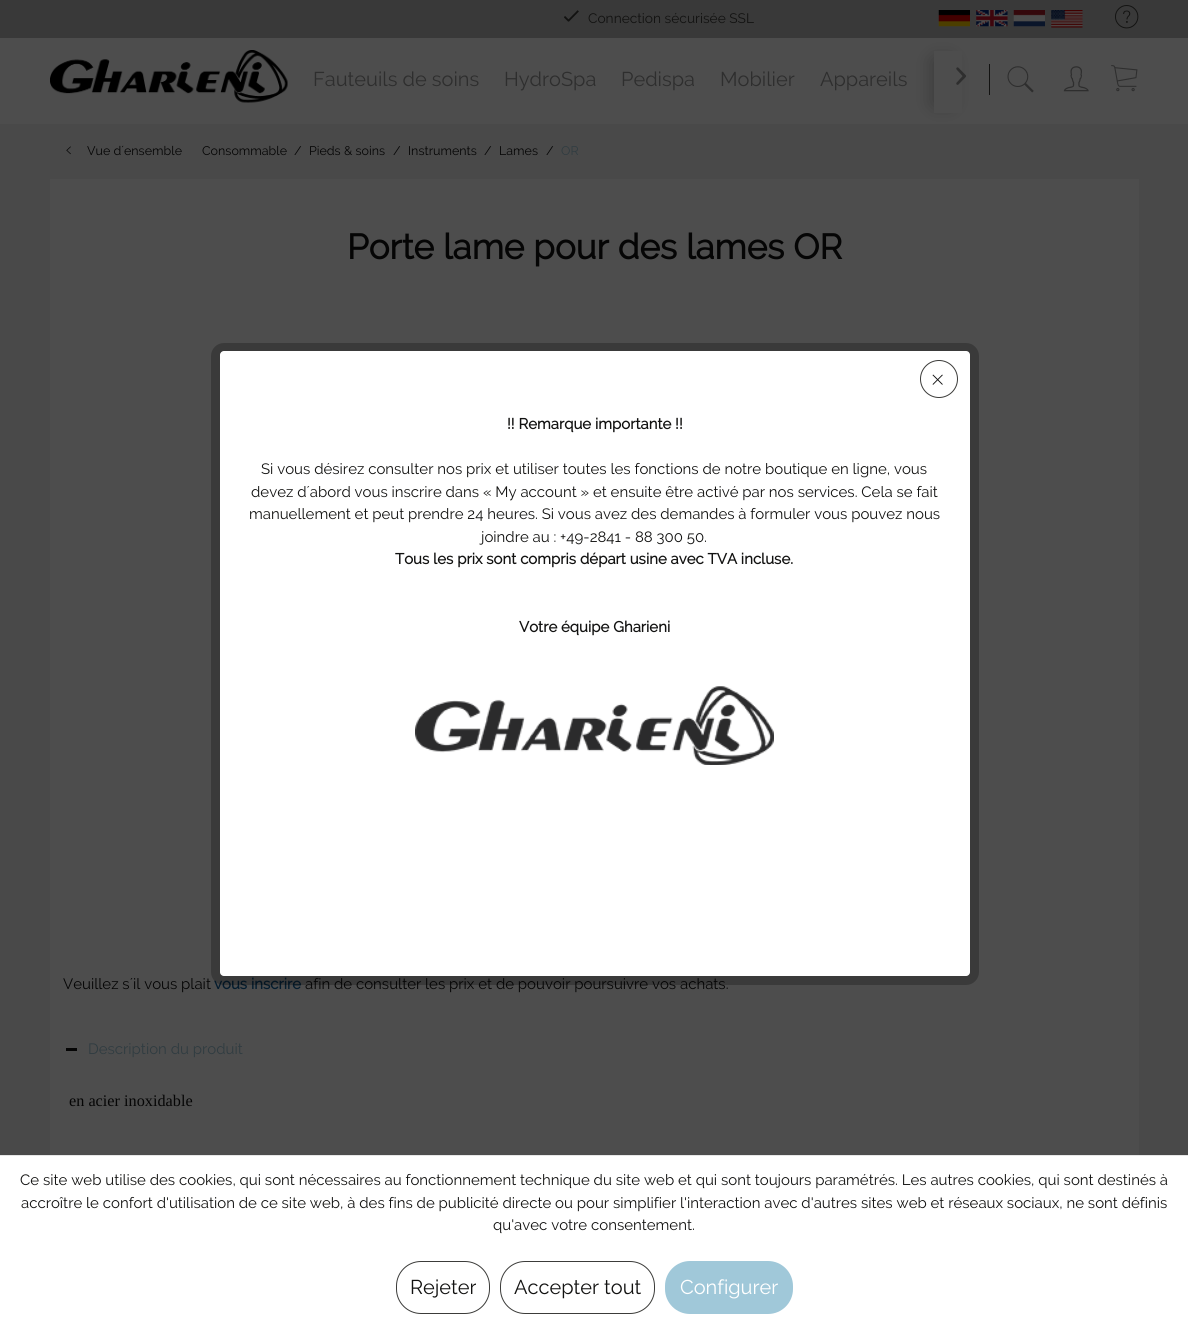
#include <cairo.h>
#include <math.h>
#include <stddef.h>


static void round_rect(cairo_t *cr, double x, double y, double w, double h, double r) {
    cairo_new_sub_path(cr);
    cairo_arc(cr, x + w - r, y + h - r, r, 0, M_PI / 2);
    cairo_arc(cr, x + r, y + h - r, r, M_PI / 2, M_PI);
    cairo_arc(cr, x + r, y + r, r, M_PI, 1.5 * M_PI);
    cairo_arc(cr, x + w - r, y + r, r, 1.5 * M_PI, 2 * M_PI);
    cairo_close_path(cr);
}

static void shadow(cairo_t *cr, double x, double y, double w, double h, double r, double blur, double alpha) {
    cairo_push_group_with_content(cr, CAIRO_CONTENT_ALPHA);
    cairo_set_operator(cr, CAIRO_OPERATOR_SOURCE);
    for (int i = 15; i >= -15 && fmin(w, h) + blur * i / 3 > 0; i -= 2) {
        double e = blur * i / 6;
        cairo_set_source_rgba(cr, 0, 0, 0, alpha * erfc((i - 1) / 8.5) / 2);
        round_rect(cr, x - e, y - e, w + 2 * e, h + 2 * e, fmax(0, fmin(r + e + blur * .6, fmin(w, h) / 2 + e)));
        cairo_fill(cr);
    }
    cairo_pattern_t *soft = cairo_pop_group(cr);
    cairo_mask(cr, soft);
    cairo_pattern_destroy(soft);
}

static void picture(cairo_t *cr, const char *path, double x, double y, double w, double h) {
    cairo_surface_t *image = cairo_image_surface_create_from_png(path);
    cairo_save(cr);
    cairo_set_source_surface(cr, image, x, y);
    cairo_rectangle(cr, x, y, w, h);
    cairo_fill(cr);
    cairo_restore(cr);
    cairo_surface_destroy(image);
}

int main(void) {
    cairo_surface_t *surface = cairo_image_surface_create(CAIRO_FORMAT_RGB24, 1188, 1326);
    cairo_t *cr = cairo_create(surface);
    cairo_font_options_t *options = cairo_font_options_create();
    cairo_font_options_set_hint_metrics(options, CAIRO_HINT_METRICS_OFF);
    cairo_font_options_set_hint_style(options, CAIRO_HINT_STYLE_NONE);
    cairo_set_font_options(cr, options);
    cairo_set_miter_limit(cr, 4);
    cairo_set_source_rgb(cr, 0.286, 0.286, 0.286);
    cairo_paint(cr);
    cairo_set_source_rgb(cr, 0.302, 0.302, 0.302);
    cairo_rectangle(cr, 0, 38, 1188, 86);
    cairo_fill(cr);
    cairo_set_source_rgb(cr, 0.224, 0.224, 0.224);
    cairo_rectangle(cr, 0, 0, 1188, 38);
    cairo_fill(cr);
    picture(cr, "img1.png", 564, 10, 15, 12);
    cairo_select_font_face(cr, "Raleway", CAIRO_FONT_SLANT_NORMAL, CAIRO_FONT_WEIGHT_NORMAL);
    cairo_set_font_size(cr, 13.75);
    cairo_set_source_rgb(cr, 0.071, 0.071, 0.067);
    cairo_move_to(cr, 588, 23);
    cairo_show_text(cr, "Connection sécurisée SSL");
    picture(cr, "img2.png", 938, 10, 32, 17);
    picture(cr, "img3.png", 976, 10, 32, 17);
    picture(cr, "img4.png", 1013, 10, 32, 17);
    picture(cr, "img5.png", 1051, 10, 32, 18);
    picture(cr, "img6.png", 1115, 5, 24, 24);
    picture(cr, "img7.png", 50, 50, 238, 53);
    cairo_rectangle(cr, 989, 64, 1, 31);
    cairo_fill(cr);
    picture(cr, "img8.png", 1007, 66, 27, 27);
    picture(cr, "img9.png", 1063, 66, 26, 26);
    picture(cr, "img10.png", 1111, 65, 27, 27);
    cairo_set_font_size(cr, 20);
    cairo_set_source_rgb(cr, 0.18, 0.18, 0.18);
    cairo_move_to(cr, 313, 86);
    cairo_show_text(cr, "Fauteuils de soins");
    cairo_move_to(cr, 504, 86);
    cairo_show_text(cr, "HydroSpa");
    cairo_move_to(cr, 621, 86);
    cairo_show_text(cr, "Pedispa");
    cairo_move_to(cr, 720, 86);
    cairo_show_text(cr, "Mobilier");
    cairo_move_to(cr, 820, 86);
    cairo_show_text(cr, "Appareils");
    cairo_set_source_rgb(cr, 0, 0, 0);
    shadow(cr, 934, 60, 17, 44, 0, 9.5, 0.3);
    cairo_set_source_rgb(cr, 0.302, 0.302, 0.302);
    cairo_rectangle(cr, 934, 51, 28, 62);
    cairo_fill(cr);
    picture(cr, "img11.png", 956, 67, 11, 18);
    picture(cr, "img12.png", 66, 146, 5, 9);
    cairo_set_font_size(cr, 12.5);
    cairo_set_source_rgb(cr, 0.02, 0.02, 0.02);
    cairo_move_to(cr, 87, 155);
    cairo_show_text(cr, "Vue d´ensemble");
    cairo_move_to(cr, 202, 155);
    cairo_show_text(cr, "Consommable");
    cairo_move_to(cr, 294, 155);
    cairo_show_text(cr, "/");
    cairo_move_to(cr, 309, 155);
    cairo_show_text(cr, "Pieds & soins");
    cairo_move_to(cr, 393, 155);
    cairo_show_text(cr, "/");
    cairo_move_to(cr, 408, 155);
    cairo_show_text(cr, "Instruments");
    cairo_move_to(cr, 484, 155);
    cairo_show_text(cr, "/");
    cairo_move_to(cr, 499, 155);
    cairo_show_text(cr, "Lames");
    cairo_move_to(cr, 546, 155);
    cairo_show_text(cr, "/");
    cairo_set_source_rgb(cr, 0.188, 0.235, 0.255);
    cairo_move_to(cr, 561, 155);
    cairo_show_text(cr, "OR");
    cairo_set_source_rgb(cr, 0.302, 0.302, 0.302);
    cairo_rectangle(cr, 50, 179, 1089, 976);
    cairo_fill(cr);
    cairo_select_font_face(cr, "Raleway", CAIRO_FONT_SLANT_NORMAL, CAIRO_FONT_WEIGHT_BOLD);
    cairo_set_font_size(cr, 35);
    cairo_set_source_rgb(cr, 0.02, 0.02, 0.02);
    cairo_move_to(cr, 347, 259);
    cairo_show_text(cr, "Porte lame pour des lames OR");
    cairo_select_font_face(cr, "Raleway", CAIRO_FONT_SLANT_NORMAL, CAIRO_FONT_WEIGHT_NORMAL);
    cairo_set_font_size(cr, 15);
    cairo_move_to(cr, 63, 989);
    cairo_show_text(cr, "Veuillez s´il vous plait");
    cairo_select_font_face(cr, "Raleway", CAIRO_FONT_SLANT_NORMAL, CAIRO_FONT_WEIGHT_BOLD);
    cairo_set_source_rgb(cr, 0.016, 0.11, 0.18);
    cairo_move_to(cr, 214, 989);
    cairo_show_text(cr, "vous inscrire");
    cairo_select_font_face(cr, "Raleway", CAIRO_FONT_SLANT_NORMAL, CAIRO_FONT_WEIGHT_NORMAL);
    cairo_set_source_rgb(cr, 0.02, 0.02, 0.02);
    cairo_move_to(cr, 305, 989);
    cairo_show_text(cr, "afin de consulter les prix et de pouvoir poursuivre vos achats.");
    cairo_rectangle(cr, 66, 1048, 11, 3);
    cairo_fill(cr);
    cairo_set_source_rgb(cr, 0.188, 0.235, 0.255);
    cairo_move_to(cr, 88, 1054);
    cairo_show_text(cr, "Description du produit");
    cairo_select_font_face(cr, "Liberation Serif", CAIRO_FONT_SLANT_NORMAL, CAIRO_FONT_WEIGHT_NORMAL);
    cairo_set_font_size(cr, 16.25);
    cairo_set_source_rgb(cr, 0.02, 0.02, 0.02);
    cairo_move_to(cr, 69, 1106);
    cairo_show_text(cr, "en acier inoxidable");
    round_rect(cr, 215.5, 347.5, 759, 633, 8.5);
    cairo_set_source_rgba(cr, 0, 0, 0, 0.25);
    cairo_set_line_width(cr, 9);
    cairo_stroke(cr);
    cairo_set_source_rgb(cr, 1, 1, 1);
    round_rect(cr, 220, 351, 750, 625, 4);
    cairo_fill(cr);
    cairo_arc(cr, 939, 379, 18.5, 0, 2 * M_PI);
    cairo_set_source_rgb(cr, 0.235, 0.235, 0.227);
    cairo_set_line_width(cr, 1);
    cairo_stroke(cr);
    picture(cr, "img13.png", 932, 374, 11, 11);
    cairo_select_font_face(cr, "Raleway", CAIRO_FONT_SLANT_NORMAL, CAIRO_FONT_WEIGHT_BOLD);
    cairo_set_font_size(cr, 15);
    cairo_set_source_rgb(cr, 0.071, 0.071, 0.067);
    cairo_move_to(cr, 507, 429);
    cairo_show_text(cr, "!! Remarque importante !!");
    cairo_select_font_face(cr, "Raleway", CAIRO_FONT_SLANT_NORMAL, CAIRO_FONT_WEIGHT_NORMAL);
    cairo_move_to(cr, 261, 474);
    cairo_show_text(cr, "Si vous désirez consulter nos prix et utiliser toutes les fonctions de notre boutique en ligne, vous");
    cairo_move_to(cr, 251, 497);
    cairo_show_text(cr, "devez d´abord vous inscrire dans « My account » et ensuite être activé par nos services. Cela se fait");
    cairo_move_to(cr, 249, 519);
    cairo_show_text(cr, "manuellement et peut prendre 24 heures. Si vous avez des demandes à formuler vous pouvez nous");
    cairo_move_to(cr, 481, 542);
    cairo_show_text(cr, "joindre au : +49-2841 - 88 300 50.");
    cairo_select_font_face(cr, "Raleway", CAIRO_FONT_SLANT_NORMAL, CAIRO_FONT_WEIGHT_BOLD);
    cairo_move_to(cr, 395, 564);
    cairo_show_text(cr, "Tous les prix sont compris départ usine avec TVA incluse.");
    cairo_move_to(cr, 519, 632);
    cairo_show_text(cr, "Votre équipe Gharieni");
    picture(cr, "img14.png", 415, 686, 359, 79);
    cairo_set_source_rgb(cr, 1, 1, 1);
    cairo_rectangle(cr, 0, 1156, 1188, 170);
    cairo_fill(cr);
    cairo_set_source_rgb(cr, 0.902, 0.902, 0.902);
    cairo_rectangle(cr, 0, 1155, 1188, 1);
    cairo_fill(cr);
    cairo_select_font_face(cr, "Raleway", CAIRO_FONT_SLANT_NORMAL, CAIRO_FONT_WEIGHT_NORMAL);
    cairo_set_source_rgb(cr, 0.071, 0.071, 0.067);
    cairo_move_to(cr, 20, 1185);
    cairo_show_text(cr, "Ce site web utilise des cookies, qui sont nécessaires au fonctionnement technique du site web et qui sont toujours paramétrés. Les autres cookies, qui sont destinés à");
    cairo_move_to(cr, 21, 1208);
    cairo_show_text(cr, "accroître le confort d'utilisation de ce site web, à des fins de publicité directe ou pour simplifier l'interaction avec d'autres sites web et réseaux sociaux, ne sont définis");
    cairo_move_to(cr, 493, 1230);
    cairo_show_text(cr, "qu'avec votre consentement.");
    round_rect(cr, 396.5, 1261.5, 93, 52, 24.5);
    cairo_set_source_rgb(cr, 0.235, 0.235, 0.227);
    cairo_stroke(cr);
    cairo_set_font_size(cr, 20);
    cairo_set_source_rgb(cr, 0.071, 0.071, 0.067);
    cairo_move_to(cr, 410, 1294);
    cairo_show_text(cr, "Rejeter");
    round_rect(cr, 500.5, 1261.5, 154, 52, 24.5);
    cairo_set_source_rgb(cr, 0.235, 0.235, 0.227);
    cairo_stroke(cr);
    cairo_set_source_rgb(cr, 0.071, 0.071, 0.067);
    cairo_move_to(cr, 514, 1294);
    cairo_show_text(cr, "Accepter tout");
    cairo_set_source_rgb(cr, 0.627, 0.784, 0.851);
    round_rect(cr, 665, 1261, 128, 53, 25);
    cairo_fill(cr);
    cairo_set_source_rgb(cr, 1, 1, 1);
    cairo_move_to(cr, 680, 1294);
    cairo_show_text(cr, "Configurer");
    cairo_surface_write_to_png(surface, "page.png");
    cairo_font_options_destroy(options);
    cairo_destroy(cr);
    cairo_surface_destroy(surface);
    return 0;
}
